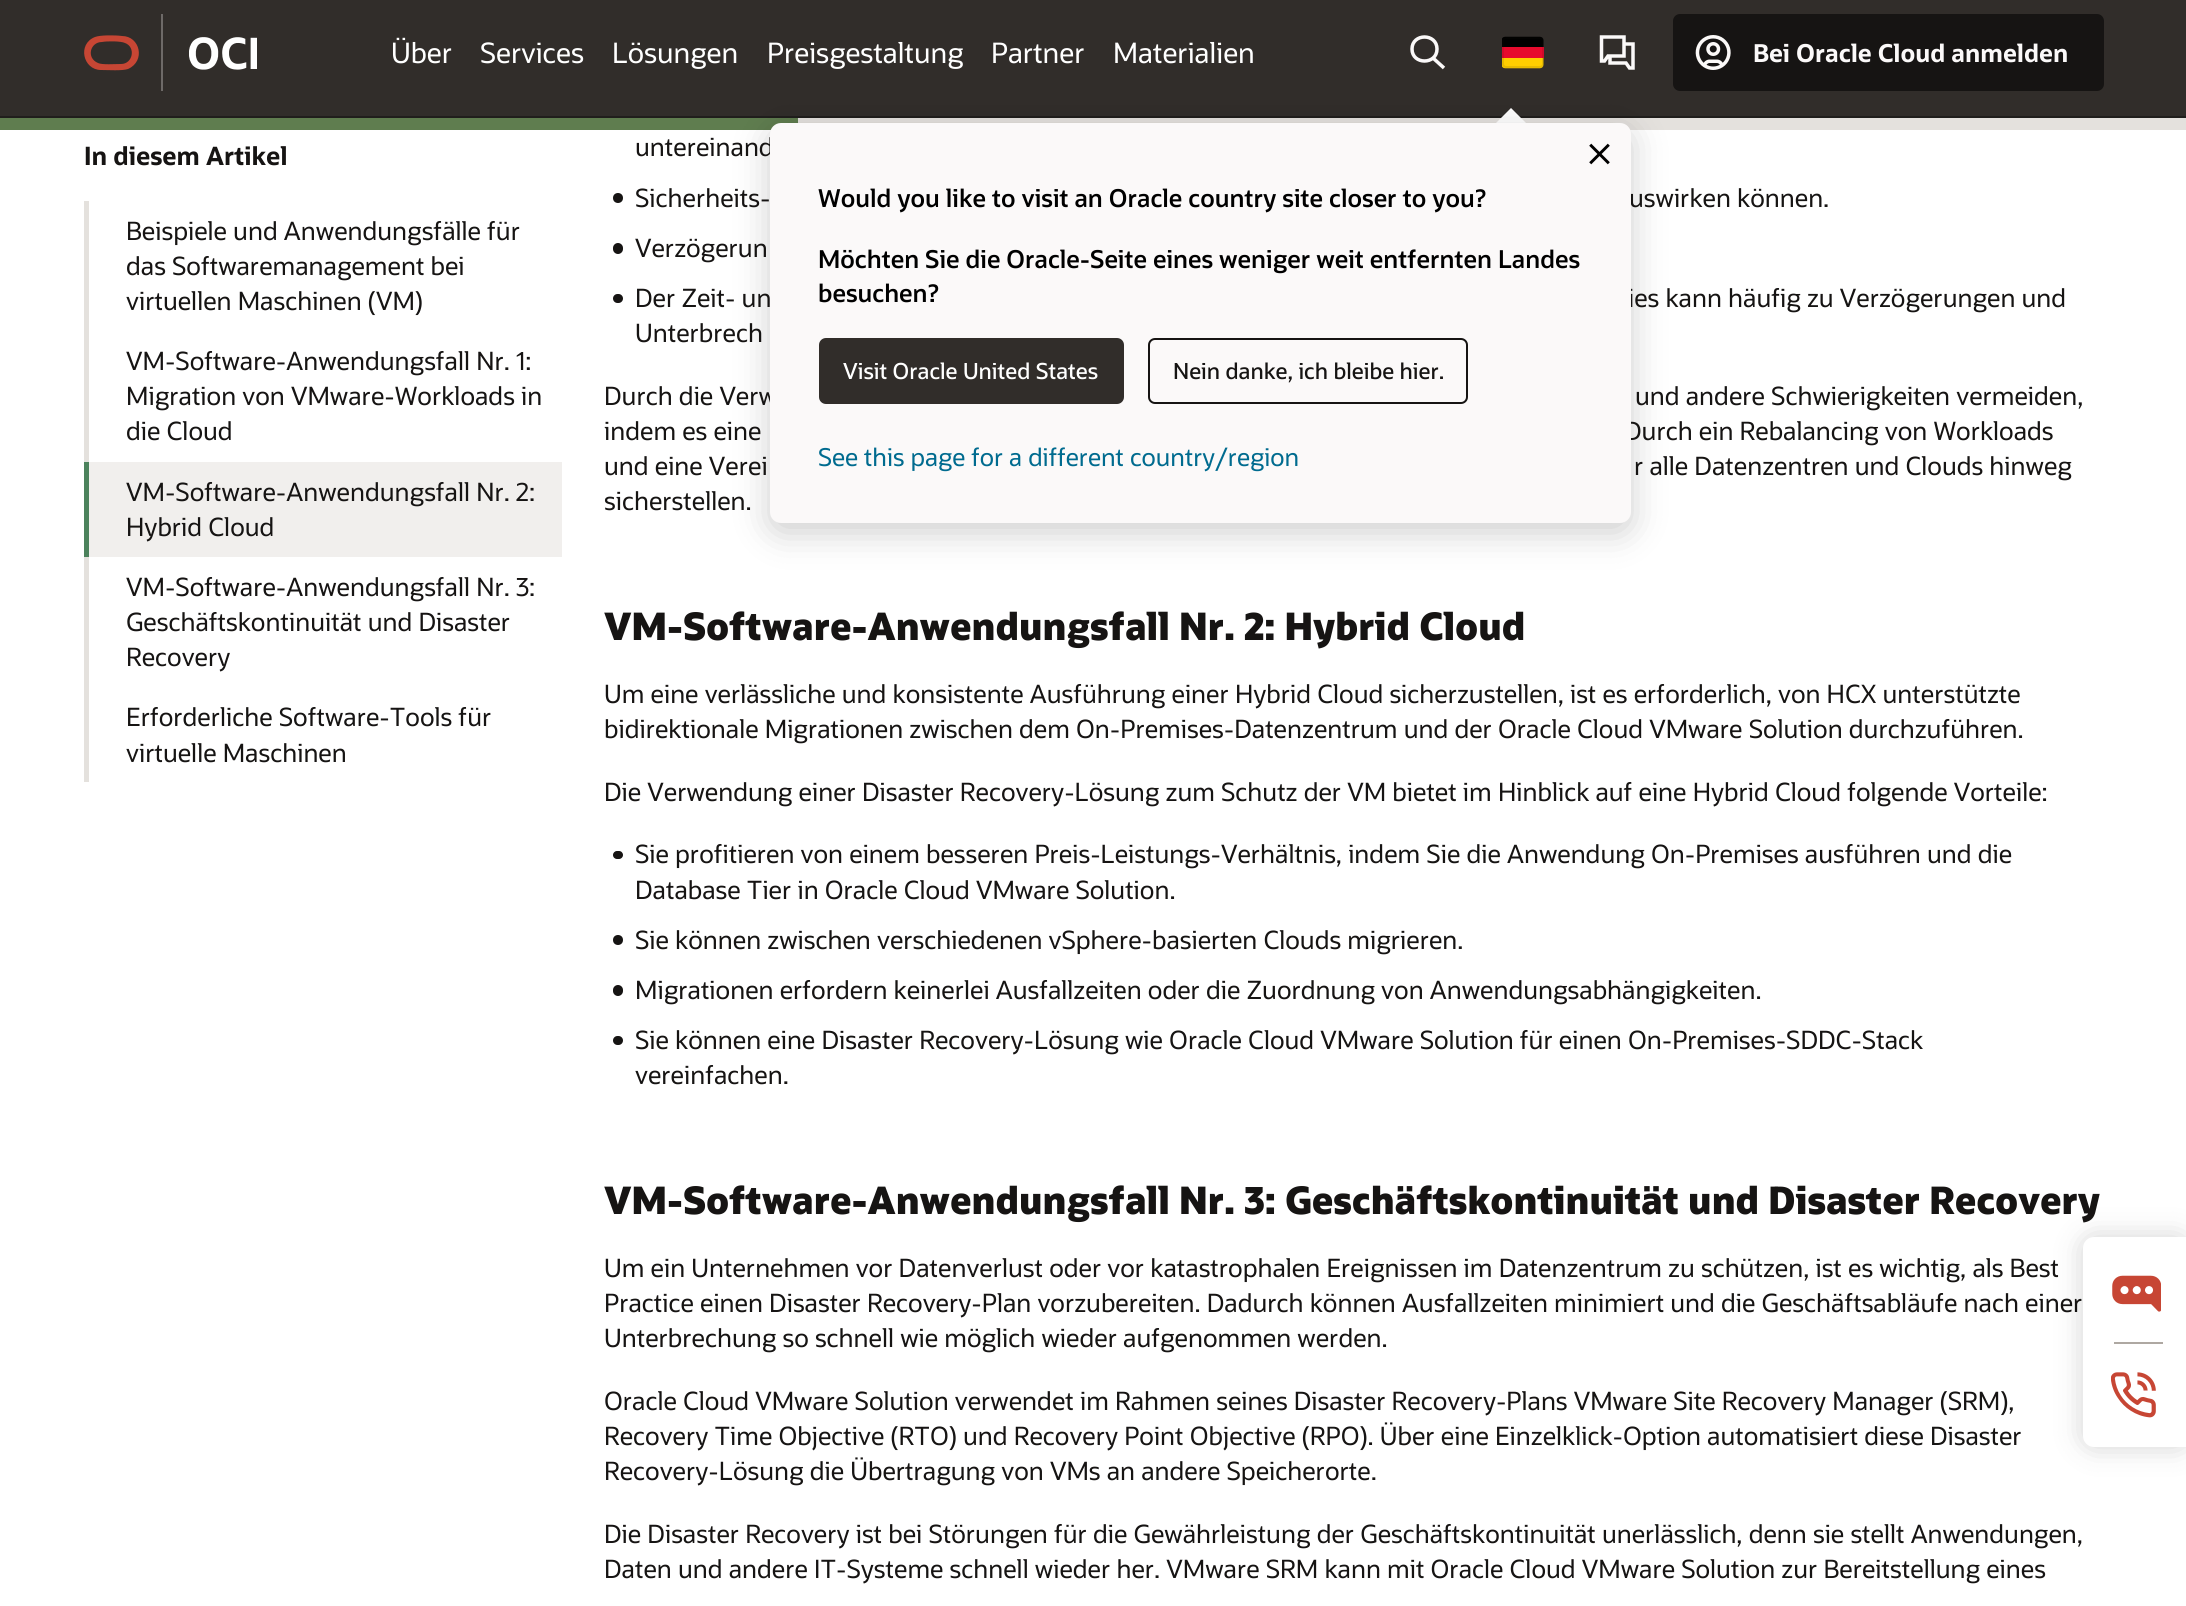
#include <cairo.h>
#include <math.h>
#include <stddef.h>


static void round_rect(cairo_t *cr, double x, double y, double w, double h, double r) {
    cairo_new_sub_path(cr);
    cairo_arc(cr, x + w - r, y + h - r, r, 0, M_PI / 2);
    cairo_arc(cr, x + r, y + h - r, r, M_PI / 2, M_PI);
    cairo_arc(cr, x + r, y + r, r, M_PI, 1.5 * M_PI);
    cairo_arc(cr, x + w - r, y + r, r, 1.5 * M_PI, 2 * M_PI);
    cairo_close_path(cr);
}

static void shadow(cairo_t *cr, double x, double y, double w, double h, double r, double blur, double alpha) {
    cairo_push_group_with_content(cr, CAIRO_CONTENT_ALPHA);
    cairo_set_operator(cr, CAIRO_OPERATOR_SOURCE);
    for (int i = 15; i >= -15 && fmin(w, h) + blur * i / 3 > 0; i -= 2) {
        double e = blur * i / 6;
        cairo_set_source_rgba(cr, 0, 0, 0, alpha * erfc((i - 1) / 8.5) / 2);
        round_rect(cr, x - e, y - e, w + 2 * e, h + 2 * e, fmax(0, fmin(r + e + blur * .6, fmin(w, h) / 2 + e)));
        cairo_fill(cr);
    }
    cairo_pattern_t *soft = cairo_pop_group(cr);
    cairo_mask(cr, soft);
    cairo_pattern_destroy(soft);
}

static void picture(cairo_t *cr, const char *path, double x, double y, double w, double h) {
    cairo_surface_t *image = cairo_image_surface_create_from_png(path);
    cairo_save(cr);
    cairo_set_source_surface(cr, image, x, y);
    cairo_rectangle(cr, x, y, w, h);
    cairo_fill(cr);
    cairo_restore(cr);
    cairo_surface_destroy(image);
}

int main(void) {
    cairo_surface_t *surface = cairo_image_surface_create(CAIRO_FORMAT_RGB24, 2186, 1606);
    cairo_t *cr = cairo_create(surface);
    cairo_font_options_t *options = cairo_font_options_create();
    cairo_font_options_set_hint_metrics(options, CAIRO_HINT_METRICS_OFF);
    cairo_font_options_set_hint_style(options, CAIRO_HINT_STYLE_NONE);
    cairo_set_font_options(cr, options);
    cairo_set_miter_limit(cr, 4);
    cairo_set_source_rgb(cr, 1, 1, 1);
    cairo_paint(cr);
    cairo_set_source_rgb(cr, 0.192, 0.176, 0.165);
    cairo_rectangle(cr, 0, 0, 2186, 116);
    cairo_fill(cr);
    cairo_set_source_rgb(cr, 0.78, 0.275, 0.204);
    cairo_new_path(cr);
    cairo_move_to(cr, 101, 70);
    cairo_curve_to(cr, 83, 70, 77, 44, 95, 37);
    cairo_curve_to(cr, 100, 35, 115, 35, 122, 36);
    cairo_curve_to(cr, 140, 36, 146, 61, 128, 69);
    cairo_curve_to(cr, 122, 71, 108, 70, 101, 70);
    cairo_move_to(cr, 121, 64);
    cairo_curve_to(cr, 133, 64, 136, 47, 125, 43);
    cairo_curve_to(cr, 121, 41, 107, 41, 102, 42);
    cairo_curve_to(cr, 90, 42, 86, 58, 98, 63);
    cairo_curve_to(cr, 102, 65, 115, 64, 121, 64);
    cairo_fill(cr);
    cairo_set_source_rgb(cr, 0.431, 0.416, 0.408);
    cairo_rectangle(cr, 161, 14, 2, 77);
    cairo_fill(cr);
    picture(cr, "img1.png", 189, 37, 68, 33);
    cairo_select_font_face(cr, "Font", CAIRO_FONT_SLANT_NORMAL, CAIRO_FONT_WEIGHT_NORMAL);
    cairo_set_font_size(cr, 28);
    cairo_set_source_rgb(cr, 1, 1, 1);
    cairo_move_to(cr, 391, 63);
    cairo_show_text(cr, "Über");
    cairo_move_to(cr, 480, 63);
    cairo_show_text(cr, "Services");
    cairo_move_to(cr, 612, 63);
    cairo_show_text(cr, "Lösungen");
    cairo_move_to(cr, 767, 63);
    cairo_show_text(cr, "Preisgestaltung");
    cairo_move_to(cr, 991, 63);
    cairo_show_text(cr, "Partner");
    cairo_move_to(cr, 1113, 63);
    cairo_show_text(cr, "Materialien");
    cairo_new_path(cr);
    cairo_move_to(cr, 1433, 58);
    cairo_line_to(cr, 1444, 68);
    cairo_move_to(cr, 1437, 49);
    cairo_curve_to(cr, 1437, 65, 1412, 65, 1412, 49);
    cairo_curve_to(cr, 1412, 33, 1437, 33, 1437, 49);
    cairo_close_path(cr);
    cairo_set_source_rgb(cr, 0.984, 0.976, 0.973);
    cairo_set_line_width(cr, 3.5);
    cairo_stroke(cr);
    cairo_new_path(cr);
    cairo_move_to(cr, 1624, 37);
    cairo_line_to(cr, 1624, 56);
    cairo_line_to(cr, 1608, 56);
    cairo_line_to(cr, 1604.5, 61);
    cairo_line_to(cr, 1601.5, 61);
    cairo_line_to(cr, 1601.5, 37);
    cairo_close_path(cr);
    cairo_move_to(cr, 1610, 56);
    cairo_line_to(cr, 1610, 63);
    cairo_line_to(cr, 1626, 63);
    cairo_line_to(cr, 1629.5, 68);
    cairo_line_to(cr, 1633, 68);
    cairo_line_to(cr, 1633, 44);
    cairo_line_to(cr, 1624, 44);
    cairo_stroke(cr);
    cairo_set_source_rgb(cr, 0.125, 0.118, 0.11);
    cairo_rectangle(cr, 0, 116, 2186, 2);
    cairo_fill(cr);
    cairo_set_source_rgb(cr, 0.894, 0.882, 0.867);
    cairo_rectangle(cr, 798, 118, 1388, 12);
    cairo_fill(cr);
    cairo_set_source_rgb(cr, 1, 1, 1);
    cairo_new_path(cr);
    cairo_move_to(cr, 1539, 136);
    cairo_line_to(cr, 1483, 136);
    cairo_line_to(cr, 1511, 108);
    cairo_close_path(cr);
    cairo_fill(cr);
    cairo_set_source_rgb(cr, 0.373, 0.49, 0.31);
    cairo_rectangle(cr, 0, 118, 798, 12);
    cairo_fill(cr);
    cairo_set_source_rgb(cr, 0, 0, 0);
    shadow(cr, 770, 131, 861, 401, 11, 17.5, 0.2);
    cairo_set_source_rgb(cr, 0.086, 0.082, 0.075);
    round_rect(cr, 1673, 14, 431, 77, 7);
    cairo_fill(cr);
    picture(cr, "img2.png", 1695, 35, 36, 35);
    cairo_select_font_face(cr, "Font", CAIRO_FONT_SLANT_NORMAL, CAIRO_FONT_WEIGHT_BOLD);
    cairo_set_font_size(cr, 24.5);
    cairo_set_source_rgb(cr, 0.984, 0.976, 0.973);
    cairo_move_to(cr, 1753, 62);
    cairo_show_text(cr, "Bei Oracle Cloud anmelden");
    picture(cr, "img3.png", 1502, 36, 42, 33);
    cairo_select_font_face(cr, "Font", CAIRO_FONT_SLANT_NORMAL, CAIRO_FONT_WEIGHT_NORMAL);
    cairo_set_font_size(cr, 25.1);
    cairo_set_source_rgb(cr, 0.086, 0.082, 0.075);
    cairo_move_to(cr, 635, 156);
    cairo_show_text(cr, "untereinand");
    cairo_move_to(cr, 1629, 207);
    cairo_show_text(cr, "uswirken können.");
    cairo_move_to(cr, 1628, 307);
    cairo_show_text(cr, "ies kann häufig zu Verzögerungen und");
    cairo_move_to(cr, 604, 405);
    cairo_show_text(cr, "Durch die Verw");
    cairo_move_to(cr, 1624, 440);
    cairo_show_text(cr, "Durch ein Rebalancing von Workloads");
    cairo_set_source_rgb(cr, 0.984, 0.976, 0.973);
    round_rect(cr, 770, 123, 861, 400, 11);
    cairo_fill(cr);
    picture(cr, "img4.png", 1589, 143, 21, 22);
    cairo_select_font_face(cr, "Font SemiBold", CAIRO_FONT_SLANT_NORMAL, CAIRO_FONT_WEIGHT_NORMAL);
    cairo_set_font_size(cr, 24.5);
    cairo_set_source_rgb(cr, 0, 0, 0);
    cairo_move_to(cr, 818, 207);
    cairo_show_text(cr, "Would you like to visit an Oracle country site closer to you?");
    cairo_move_to(cr, 818, 268);
    cairo_show_text(cr, "Möchten Sie die Oracle-Seite eines weniger weit entfernten Landes");
    cairo_move_to(cr, 818, 302);
    cairo_show_text(cr, "besuchen?");
    cairo_set_source_rgb(cr, 0.192, 0.176, 0.165);
    round_rect(cr, 819, 338, 305, 66, 7);
    cairo_fill(cr);
    cairo_select_font_face(cr, "Font Medium", CAIRO_FONT_SLANT_NORMAL, CAIRO_FONT_WEIGHT_NORMAL);
    cairo_set_font_size(cr, 22);
    cairo_set_source_rgb(cr, 1, 1, 1);
    cairo_move_to(cr, 843, 379);
    cairo_show_text(cr, "Visit Oracle United States");
    round_rect(cr, 1149, 339, 318, 64, 6);
    cairo_set_source_rgb(cr, 0.086, 0.082, 0.075);
    cairo_set_line_width(cr, 2);
    cairo_stroke(cr);
    cairo_move_to(cr, 1173, 379);
    cairo_show_text(cr, "Nein danke, ich bleibe hier.");
    cairo_select_font_face(cr, "Font", CAIRO_FONT_SLANT_NORMAL, CAIRO_FONT_WEIGHT_NORMAL);
    cairo_set_font_size(cr, 24.5);
    cairo_set_source_rgb(cr, 0, 0.42, 0.561);
    cairo_move_to(cr, 818, 466);
    cairo_show_text(cr, "See this page for a different country/region");
    cairo_select_font_face(cr, "Font", CAIRO_FONT_SLANT_NORMAL, CAIRO_FONT_WEIGHT_BOLD);
    cairo_set_font_size(cr, 25.1);
    cairo_set_source_rgb(cr, 0.086, 0.082, 0.075);
    cairo_move_to(cr, 84, 165);
    cairo_show_text(cr, "In diesem Artikel");
    cairo_set_source_rgb(cr, 0.894, 0.882, 0.867);
    cairo_rectangle(cr, 84, 201, 5, 581);
    cairo_fill(cr);
    cairo_select_font_face(cr, "Font", CAIRO_FONT_SLANT_NORMAL, CAIRO_FONT_WEIGHT_NORMAL);
    cairo_set_source_rgb(cr, 0.086, 0.082, 0.075);
    cairo_move_to(cr, 126, 240);
    cairo_show_text(cr, "Beispiele und Anwendungsfälle für");
    cairo_move_to(cr, 126, 275);
    cairo_show_text(cr, "das Softwaremanagement bei");
    cairo_move_to(cr, 126, 310);
    cairo_show_text(cr, "virtuellen Maschinen (VM)");
    cairo_move_to(cr, 126, 370);
    cairo_show_text(cr, "VM-Software-Anwendungsfall Nr. 1:");
    cairo_move_to(cr, 126, 405);
    cairo_show_text(cr, "Migration von VMware-Workloads in");
    cairo_move_to(cr, 126, 440);
    cairo_show_text(cr, "die Cloud");
    cairo_set_source_rgb(cr, 0.945, 0.937, 0.929);
    cairo_rectangle(cr, 89, 462, 473, 95);
    cairo_fill(cr);
    cairo_set_source_rgb(cr, 0.298, 0.51, 0.361);
    cairo_rectangle(cr, 84, 462, 5, 95);
    cairo_fill(cr);
    cairo_set_source_rgb(cr, 0.086, 0.082, 0.075);
    cairo_move_to(cr, 126, 501);
    cairo_show_text(cr, "VM-Software-Anwendungsfall Nr. 2:");
    cairo_move_to(cr, 126, 536);
    cairo_show_text(cr, "Hybrid Cloud");
    cairo_move_to(cr, 126, 596);
    cairo_show_text(cr, "VM-Software-Anwendungsfall Nr. 3:");
    cairo_move_to(cr, 126, 631);
    cairo_show_text(cr, "Geschäftskontinuität und Disaster");
    cairo_move_to(cr, 126, 666);
    cairo_show_text(cr, "Recovery");
    cairo_move_to(cr, 126, 726);
    cairo_show_text(cr, "Erforderliche Software-Tools für");
    cairo_move_to(cr, 126, 762);
    cairo_show_text(cr, "virtuelle Maschinen");
    cairo_new_path(cr);
    cairo_arc(cr, 618, 198, 5, 0, 2 * M_PI);
    cairo_fill(cr);
    cairo_move_to(cr, 635, 207);
    cairo_show_text(cr, "Sicherheits-");
    round_rect(cr, 613, 243, 10, 11, 5);
    cairo_fill(cr);
    cairo_move_to(cr, 635, 257);
    cairo_show_text(cr, "Verzögerun");
    round_rect(cr, 613, 294, 10, 9, 4.5);
    cairo_fill(cr);
    cairo_move_to(cr, 635, 307);
    cairo_show_text(cr, "Der Zeit- un");
    cairo_move_to(cr, 635, 342);
    cairo_show_text(cr, "Unterbrech");
    cairo_move_to(cr, 1635, 405);
    cairo_show_text(cr, "und andere Schwierigkeiten vermeiden,");
    cairo_move_to(cr, 604, 440);
    cairo_show_text(cr, "indem es eine");
    cairo_move_to(cr, 604, 475);
    cairo_show_text(cr, "und eine Verei");
    cairo_move_to(cr, 1634, 475);
    cairo_show_text(cr, "r alle Datenzentren und Clouds hinweg");
    cairo_move_to(cr, 604, 510);
    cairo_show_text(cr, "sicherstellen.");
    cairo_select_font_face(cr, "Font ExtraBold", CAIRO_FONT_SLANT_NORMAL, CAIRO_FONT_WEIGHT_NORMAL);
    cairo_set_font_size(cr, 37.65);
    cairo_move_to(cr, 604, 640);
    cairo_show_text(cr, "VM-Software-Anwendungsfall Nr. 2: Hybrid Cloud");
    cairo_select_font_face(cr, "Font", CAIRO_FONT_SLANT_NORMAL, CAIRO_FONT_WEIGHT_NORMAL);
    cairo_set_font_size(cr, 25.1);
    cairo_move_to(cr, 604, 703);
    cairo_show_text(cr, "Um eine verlässliche und konsistente Ausführung einer Hybrid Cloud sicherzustellen, ist es erforderlich, von HCX unterstützte");
    cairo_move_to(cr, 604, 738);
    cairo_show_text(cr, "bidirektionale Migrationen zwischen dem On-Premises-Datenzentrum und der Oracle Cloud VMware Solution durchzuführen.");
    cairo_move_to(cr, 604, 801);
    cairo_show_text(cr, "Die Verwendung einer Disaster Recovery-Lösung zum Schutz der VM bietet im Hinblick auf eine Hybrid Cloud folgende Vorteile:");
    round_rect(cr, 613, 851, 10, 8, 4);
    cairo_fill(cr);
    cairo_move_to(cr, 635, 863);
    cairo_show_text(cr, "Sie profitieren von einem besseren Preis-Leistungs-Verhältnis, indem Sie die Anwendung On-Premises ausführen und die");
    cairo_move_to(cr, 635, 899);
    cairo_show_text(cr, "Database Tier in Oracle Cloud VMware Solution.");
    cairo_new_path(cr);
    cairo_arc(cr, 618, 940, 5, 0, 2 * M_PI);
    cairo_fill(cr);
    cairo_move_to(cr, 635, 949);
    cairo_show_text(cr, "Sie können zwischen verschiedenen vSphere-basierten Clouds migrieren.");
    round_rect(cr, 613, 985, 10, 11, 5);
    cairo_fill(cr);
    cairo_move_to(cr, 635, 999);
    cairo_show_text(cr, "Migrationen erfordern keinerlei Ausfallzeiten oder die Zuordnung von Anwendungsabhängigkeiten.");
    round_rect(cr, 613, 1036, 10, 9, 4.5);
    cairo_fill(cr);
    cairo_move_to(cr, 635, 1049);
    cairo_show_text(cr, "Sie können eine Disaster Recovery-Lösung wie Oracle Cloud VMware Solution für einen On-Premises-SDDC-Stack");
    cairo_move_to(cr, 635, 1084);
    cairo_show_text(cr, "vereinfachen.");
    cairo_select_font_face(cr, "Font ExtraBold", CAIRO_FONT_SLANT_NORMAL, CAIRO_FONT_WEIGHT_NORMAL);
    cairo_set_font_size(cr, 37.65);
    cairo_move_to(cr, 604, 1214);
    cairo_show_text(cr, "VM-Software-Anwendungsfall Nr. 3: Geschäftskontinuität und Disaster Recovery");
    cairo_select_font_face(cr, "Font", CAIRO_FONT_SLANT_NORMAL, CAIRO_FONT_WEIGHT_NORMAL);
    cairo_set_font_size(cr, 25.1);
    cairo_move_to(cr, 604, 1277);
    cairo_show_text(cr, "Um ein Unternehmen vor Datenverlust oder vor katastrophalen Ereignissen im Datenzentrum zu schützen, ist es wichtig, als Best");
    cairo_move_to(cr, 604, 1312);
    cairo_show_text(cr, "Practice einen Disaster Recovery-Plan vorzubereiten. Dadurch können Ausfallzeiten minimiert und die Geschäftsabläufe nach einer");
    cairo_move_to(cr, 604, 1347);
    cairo_show_text(cr, "Unterbrechung so schnell wie möglich wieder aufgenommen werden.");
    cairo_move_to(cr, 604, 1410);
    cairo_show_text(cr, "Oracle Cloud VMware Solution verwendet im Rahmen seines Disaster Recovery-Plans VMware Site Recovery Manager (SRM),");
    cairo_move_to(cr, 604, 1445);
    cairo_show_text(cr, "Recovery Time Objective (RTO) und Recovery Point Objective (RPO). Über eine Einzelklick-Option automatisiert diese Disaster");
    cairo_move_to(cr, 604, 1480);
    cairo_show_text(cr, "Recovery-Lösung die Übertragung von VMs an andere Speicherorte.");
    cairo_move_to(cr, 604, 1543);
    cairo_show_text(cr, "Die Disaster Recovery ist bei Störungen für die Gewährleistung der Geschäftskontinuität unerlässlich, denn sie stellt Anwendungen,");
    cairo_move_to(cr, 604, 1578);
    cairo_show_text(cr, "Daten und andere IT-Systeme schnell wieder her. VMware SRM kann mit Oracle Cloud VMware Solution zur Bereitstellung eines");
    cairo_set_source_rgb(cr, 0, 0, 0);
    shadow(cr, 2083, 1237, 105, 210, 11, 14, 0.17);
    cairo_set_source_rgb(cr, 1, 1, 1);
    cairo_new_path(cr);
    cairo_move_to(cr, 2094, 1237);
    cairo_line_to(cr, 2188, 1237);
    cairo_line_to(cr, 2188, 1447);
    cairo_line_to(cr, 2094, 1447);
    cairo_curve_to(cr, 2088, 1447, 2083, 1442, 2083, 1436);
    cairo_line_to(cr, 2083, 1248);
    cairo_curve_to(cr, 2083, 1242, 2088, 1237, 2094, 1237);
    cairo_close_path(cr);
    cairo_fill(cr);
    picture(cr, "img5.png", 2112, 1275, 49, 37);
    cairo_set_source_rgb(cr, 0.682, 0.659, 0.635);
    cairo_rectangle(cr, 2114, 1342, 49, 2);
    cairo_fill(cr);
    picture(cr, "img6.png", 2111, 1372, 45, 46);
    cairo_surface_write_to_png(surface, "page.png");
    cairo_font_options_destroy(options);
    cairo_destroy(cr);
    cairo_surface_destroy(surface);
    return 0;
}
